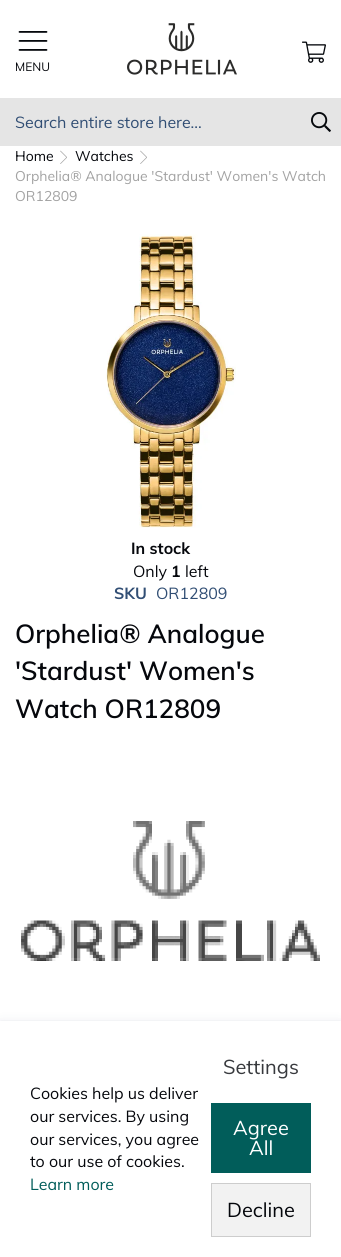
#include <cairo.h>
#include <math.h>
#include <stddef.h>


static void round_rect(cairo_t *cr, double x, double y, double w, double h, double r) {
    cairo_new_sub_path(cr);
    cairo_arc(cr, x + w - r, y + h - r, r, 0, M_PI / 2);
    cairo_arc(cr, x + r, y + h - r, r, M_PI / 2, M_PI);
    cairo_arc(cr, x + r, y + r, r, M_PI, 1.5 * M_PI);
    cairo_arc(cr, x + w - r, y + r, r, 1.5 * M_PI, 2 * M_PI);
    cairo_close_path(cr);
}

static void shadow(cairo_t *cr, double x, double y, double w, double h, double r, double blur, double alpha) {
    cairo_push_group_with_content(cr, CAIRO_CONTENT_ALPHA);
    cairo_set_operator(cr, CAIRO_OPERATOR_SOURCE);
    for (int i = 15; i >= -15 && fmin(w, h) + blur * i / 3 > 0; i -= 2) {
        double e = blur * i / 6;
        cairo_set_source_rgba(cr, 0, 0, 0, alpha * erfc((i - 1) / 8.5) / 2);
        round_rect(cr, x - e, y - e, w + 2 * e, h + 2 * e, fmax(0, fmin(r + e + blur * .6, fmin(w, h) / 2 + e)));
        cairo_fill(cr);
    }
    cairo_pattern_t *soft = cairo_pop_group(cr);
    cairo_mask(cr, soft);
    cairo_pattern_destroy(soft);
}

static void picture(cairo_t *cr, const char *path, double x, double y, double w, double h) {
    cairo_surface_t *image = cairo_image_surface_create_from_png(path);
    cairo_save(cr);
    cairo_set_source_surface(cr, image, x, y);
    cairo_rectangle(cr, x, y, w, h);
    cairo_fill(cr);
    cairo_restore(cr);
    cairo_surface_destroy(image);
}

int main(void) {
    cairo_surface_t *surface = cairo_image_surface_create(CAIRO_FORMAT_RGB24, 341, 1257);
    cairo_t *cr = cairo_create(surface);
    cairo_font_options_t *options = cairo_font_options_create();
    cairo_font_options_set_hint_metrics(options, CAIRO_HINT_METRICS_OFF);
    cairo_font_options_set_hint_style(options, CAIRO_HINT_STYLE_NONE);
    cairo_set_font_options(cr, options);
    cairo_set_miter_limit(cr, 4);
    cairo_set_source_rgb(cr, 1, 1, 1);
    cairo_paint(cr);
    picture(cr, "img1.png", 127, 23, 110, 52);
    picture(cr, "img2.png", 302, 41, 24, 22);
    picture(cr, "img3.png", 18, 31, 30, 20);
    cairo_select_font_face(cr, "Muli", CAIRO_FONT_SLANT_NORMAL, CAIRO_FONT_WEIGHT_NORMAL);
    cairo_set_font_size(cr, 12);
    cairo_set_source_rgb(cr, 0.02, 0.031, 0.047);
    cairo_move_to(cr, 15, 71);
    cairo_show_text(cr, "MENU");
    cairo_set_source_rgb(cr, 0.898, 0.898, 0.898);
    cairo_rectangle(cr, 0, 98, 341, 48);
    cairo_fill(cr);
    cairo_set_font_size(cr, 16);
    cairo_set_source_rgb(cr, 0.192, 0.306, 0.455);
    cairo_move_to(cr, 15, 128);
    cairo_show_text(cr, "Search entire store here...");
    picture(cr, "img4.png", 311, 112, 20, 20);
    cairo_set_font_size(cr, 14);
    cairo_set_source_rgb(cr, 0.02, 0.031, 0.047);
    cairo_move_to(cr, 15, 161);
    cairo_show_text(cr, "Home");
    picture(cr, "img5.png", 60, 150, 7, 14);
    cairo_move_to(cr, 75, 161);
    cairo_show_text(cr, "Watches");
    picture(cr, "img5.png", 140, 150, 7, 14);
    cairo_set_source_rgb(cr, 0.639, 0.639, 0.639);
    cairo_move_to(cr, 15, 181);
    cairo_show_text(cr, "Orphelia® Analogue 'Stardust' Women's Watch");
    cairo_move_to(cr, 15, 201);
    cairo_show_text(cr, "OR12809");
    picture(cr, "img6.png", 105, 234, 131, 294);
    cairo_select_font_face(cr, "Muli", CAIRO_FONT_SLANT_NORMAL, CAIRO_FONT_WEIGHT_BOLD);
    cairo_set_font_size(cr, 16);
    cairo_set_source_rgb(cr, 0.02, 0.031, 0.047);
    cairo_move_to(cr, 131, 554);
    cairo_show_text(cr, "In stock");
    cairo_select_font_face(cr, "Muli", CAIRO_FONT_SLANT_NORMAL, CAIRO_FONT_WEIGHT_NORMAL);
    cairo_move_to(cr, 133, 577);
    cairo_show_text(cr, "Only");
    cairo_select_font_face(cr, "Muli", CAIRO_FONT_SLANT_NORMAL, CAIRO_FONT_WEIGHT_BOLD);
    cairo_move_to(cr, 171, 577);
    cairo_show_text(cr, "1");
    cairo_select_font_face(cr, "Muli", CAIRO_FONT_SLANT_NORMAL, CAIRO_FONT_WEIGHT_NORMAL);
    cairo_move_to(cr, 185, 577);
    cairo_show_text(cr, "left");
    cairo_select_font_face(cr, "Muli", CAIRO_FONT_SLANT_NORMAL, CAIRO_FONT_WEIGHT_BOLD);
    cairo_set_source_rgb(cr, 0.192, 0.306, 0.455);
    cairo_move_to(cr, 114, 599);
    cairo_show_text(cr, "SKU");
    cairo_select_font_face(cr, "Muli", CAIRO_FONT_SLANT_NORMAL, CAIRO_FONT_WEIGHT_NORMAL);
    cairo_move_to(cr, 156, 599);
    cairo_show_text(cr, "OR12809");
    cairo_select_font_face(cr, "Muli SemiBold", CAIRO_FONT_SLANT_NORMAL, CAIRO_FONT_WEIGHT_NORMAL);
    cairo_set_font_size(cr, 26);
    cairo_set_source_rgb(cr, 0.02, 0.031, 0.047);
    cairo_move_to(cr, 15, 643);
    cairo_show_text(cr, "Orphelia® Analogue");
    cairo_move_to(cr, 15, 680);
    cairo_show_text(cr, "'Stardust' Women's");
    cairo_move_to(cr, 15, 718);
    cairo_show_text(cr, "Watch OR12809");
    picture(cr, "img7.png", 21, 821, 299, 140);
    cairo_set_source_rgb(cr, 0.365, 0.392, 0.58);
    shadow(cr, 0, 1023, 341, 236, 0, 2, 0.2);
    cairo_set_source_rgb(cr, 0.145, 0.173, 0.38);
    shadow(cr, 0, 1026, 341, 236, 0, 7.5, 0.15);
    cairo_set_source_rgb(cr, 1, 1, 1);
    cairo_rectangle(cr, 0, 1021, 341, 236);
    cairo_fill(cr);
    cairo_select_font_face(cr, "Muli", CAIRO_FONT_SLANT_NORMAL, CAIRO_FONT_WEIGHT_NORMAL);
    cairo_set_font_size(cr, 16);
    cairo_set_source_rgb(cr, 0.02, 0.031, 0.047);
    cairo_move_to(cr, 30, 1099);
    cairo_show_text(cr, "Cookies help us deliver");
    cairo_move_to(cr, 30, 1122);
    cairo_show_text(cr, "our services. By using");
    cairo_move_to(cr, 30, 1145);
    cairo_show_text(cr, "our services, you agree");
    cairo_move_to(cr, 30, 1167);
    cairo_show_text(cr, "to our use of cookies.");
    cairo_set_source_rgb(cr, 0.004, 0.365, 0.353);
    cairo_move_to(cr, 30, 1190);
    cairo_show_text(cr, "Learn more");
    cairo_set_font_size(cr, 20);
    cairo_set_source_rgb(cr, 0.216, 0.224, 0.239);
    cairo_move_to(cr, 223, 1074);
    cairo_show_text(cr, "Settings");
    cairo_set_source_rgb(cr, 0.004, 0.365, 0.353);
    cairo_rectangle(cr, 211, 1103, 100, 70);
    cairo_fill(cr);
    cairo_set_source_rgb(cr, 1, 1, 1);
    cairo_move_to(cr, 233, 1135);
    cairo_show_text(cr, "Agree");
    cairo_move_to(cr, 249, 1155);
    cairo_show_text(cr, "All");
    cairo_set_source_rgb(cr, 0.949, 0.949, 0.949);
    cairo_rectangle(cr, 211.5, 1183.5, 99, 53);
    cairo_fill_preserve(cr);
    cairo_set_source_rgb(cr, 0.804, 0.804, 0.804);
    cairo_set_line_width(cr, 1);
    cairo_stroke(cr);
    cairo_set_source_rgb(cr, 0.02, 0.031, 0.047);
    cairo_move_to(cr, 227, 1217);
    cairo_show_text(cr, "Decline");
    cairo_surface_write_to_png(surface, "page.png");
    cairo_font_options_destroy(options);
    cairo_destroy(cr);
    cairo_surface_destroy(surface);
    return 0;
}
